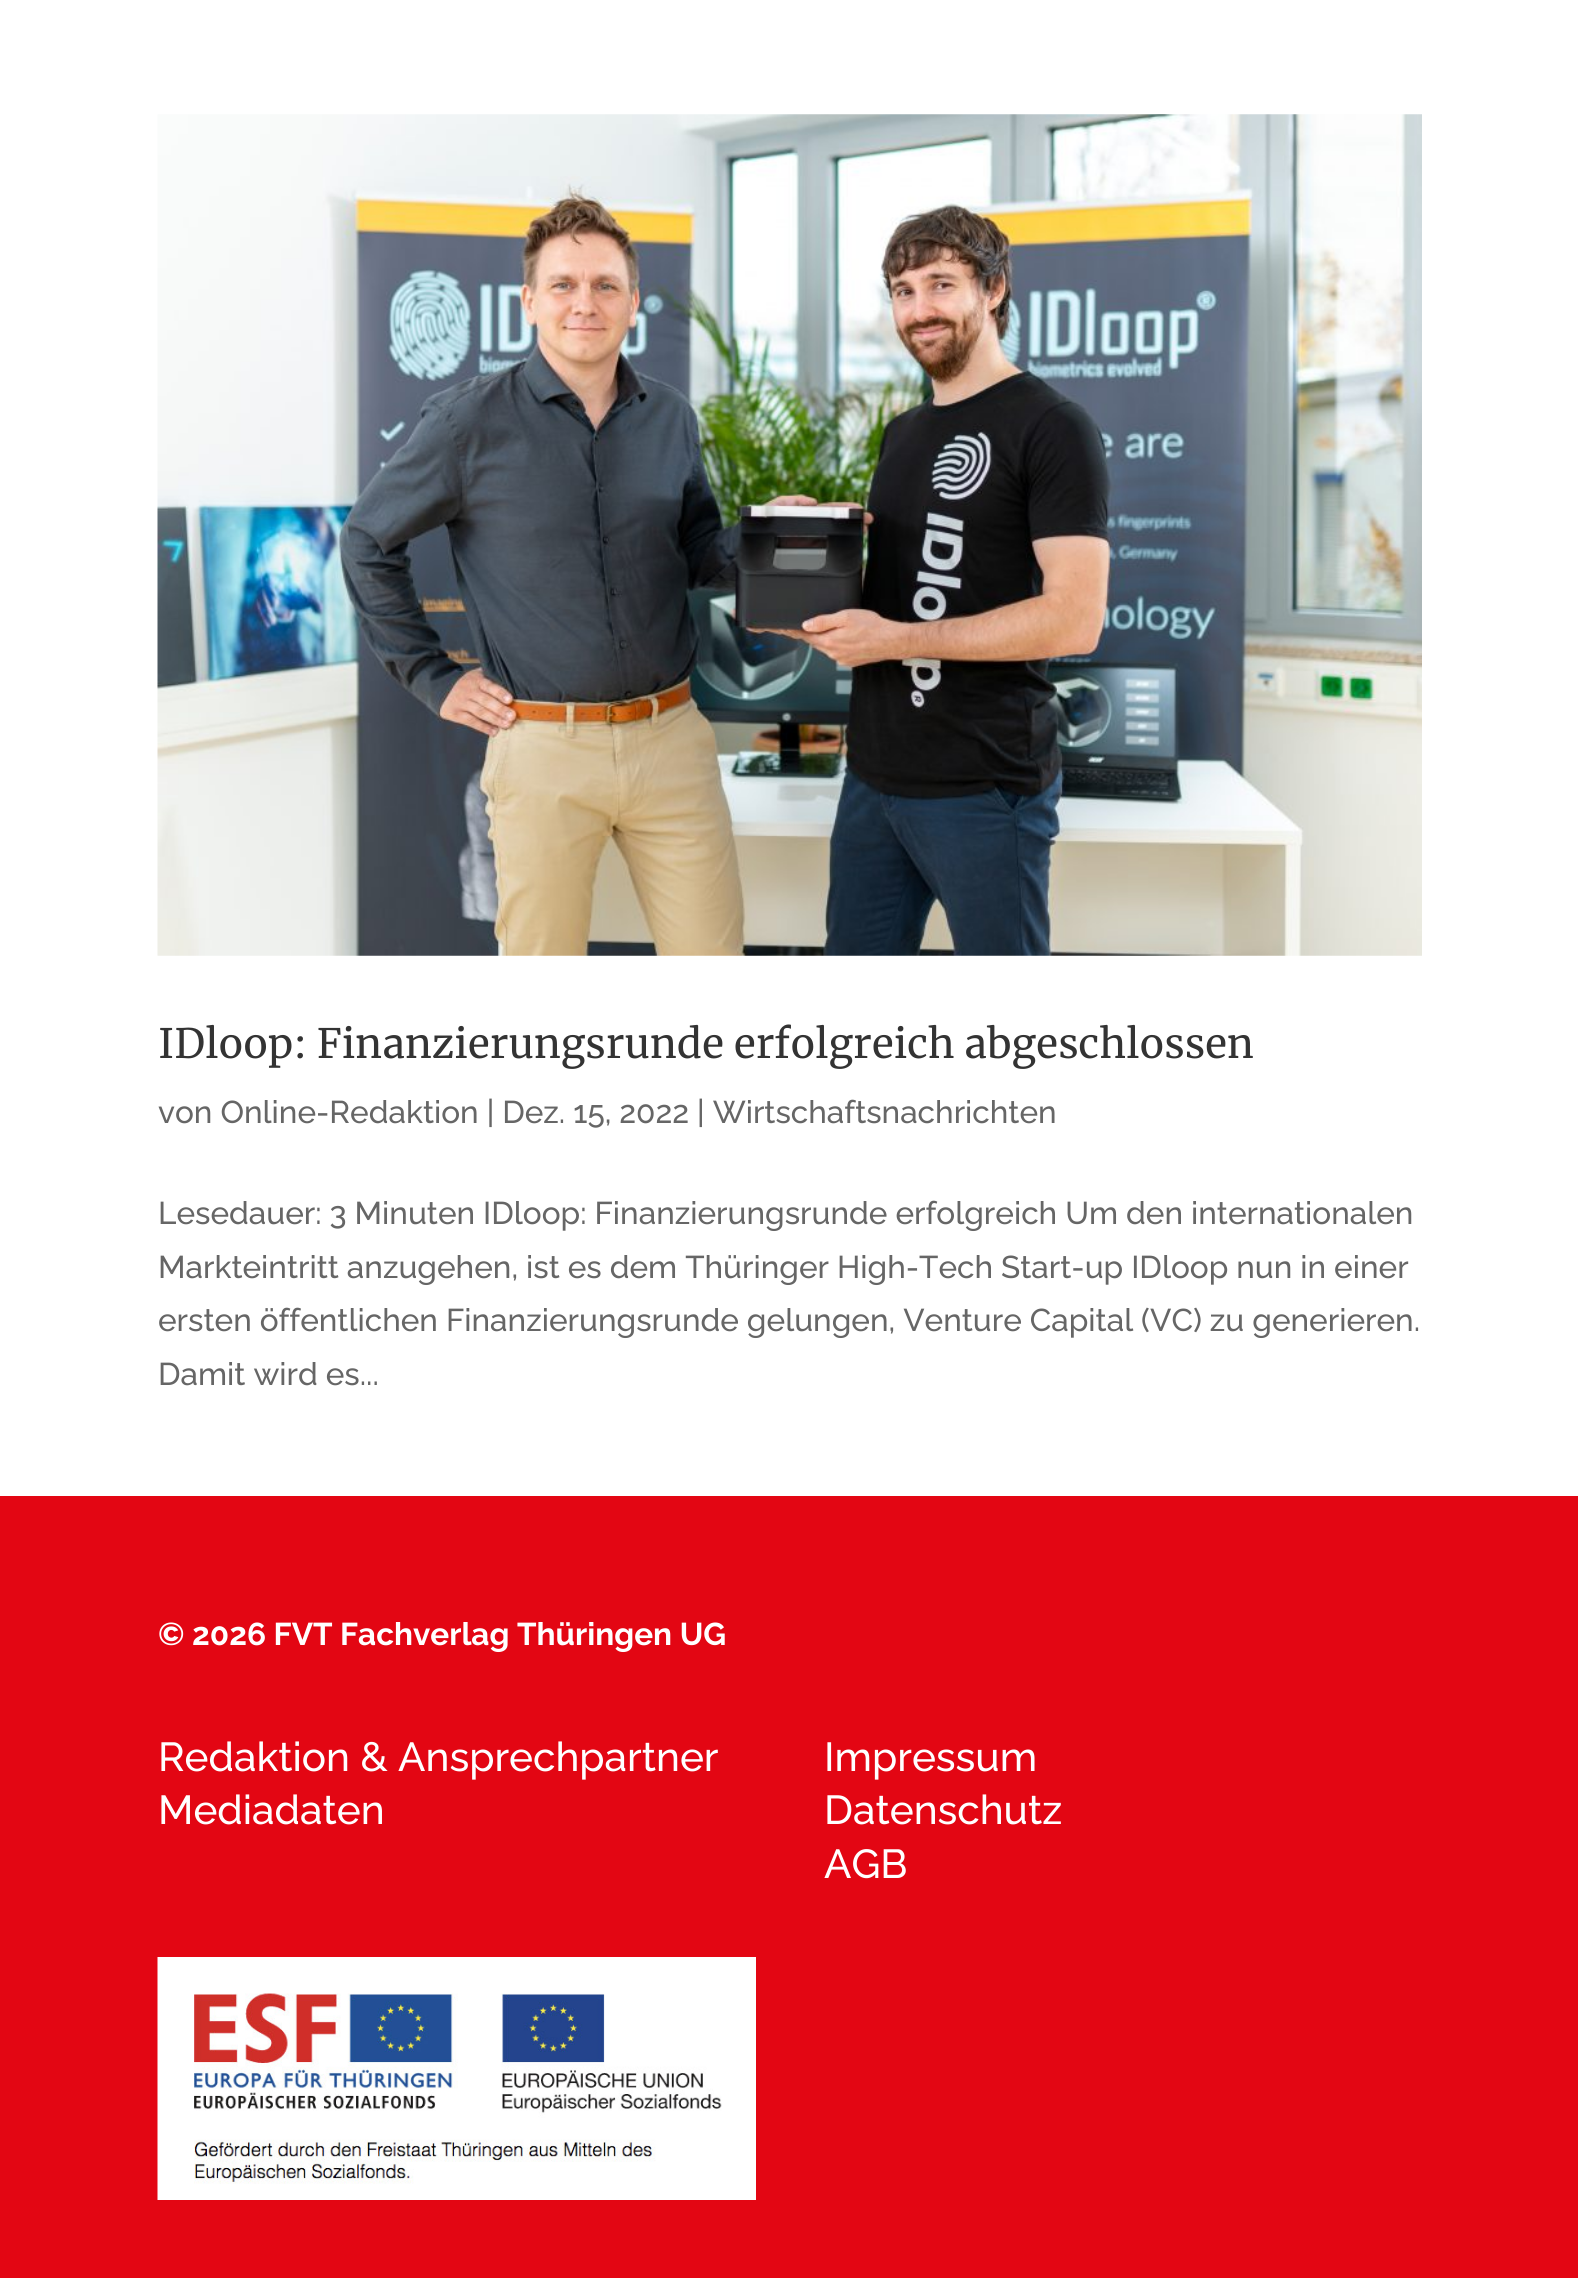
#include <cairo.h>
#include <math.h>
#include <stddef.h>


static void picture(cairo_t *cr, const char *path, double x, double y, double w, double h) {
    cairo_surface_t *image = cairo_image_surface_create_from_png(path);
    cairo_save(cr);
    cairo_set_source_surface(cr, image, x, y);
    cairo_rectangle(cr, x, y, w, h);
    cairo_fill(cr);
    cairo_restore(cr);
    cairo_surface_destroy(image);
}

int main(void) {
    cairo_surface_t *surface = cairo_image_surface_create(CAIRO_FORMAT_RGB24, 1578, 2278);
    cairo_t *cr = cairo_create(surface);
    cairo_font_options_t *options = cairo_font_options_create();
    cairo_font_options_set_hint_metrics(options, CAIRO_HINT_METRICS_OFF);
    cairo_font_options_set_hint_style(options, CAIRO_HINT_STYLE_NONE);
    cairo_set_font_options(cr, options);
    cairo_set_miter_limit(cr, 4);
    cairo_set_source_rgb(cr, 1, 1, 1);
    cairo_paint(cr);
    picture(cr, "img1.png", 157, 114, 1265, 842);
    cairo_select_font_face(cr, "Merriweather", CAIRO_FONT_SLANT_NORMAL, CAIRO_FONT_WEIGHT_NORMAL);
    cairo_set_font_size(cr, 40.5);
    cairo_set_source_rgb(cr, 0.2, 0.2, 0.2);
    cairo_move_to(cr, 158, 1058);
    cairo_show_text(cr, "IDloop: Finanzierungsrunde erfolgreich abgeschlossen");
    cairo_select_font_face(cr, "Raleway Medium", CAIRO_FONT_SLANT_NORMAL, CAIRO_FONT_WEIGHT_NORMAL);
    cairo_set_font_size(cr, 31.5);
    cairo_set_source_rgb(cr, 0.4, 0.4, 0.4);
    cairo_move_to(cr, 158, 1123);
    cairo_show_text(cr, "von Online-Redaktion | Dez. 15, 2022 | Wirtschaftsnachrichten");
    cairo_move_to(cr, 158, 1224);
    cairo_show_text(cr, "Lesedauer: 3 Minuten IDloop: Finanzierungsrunde erfolgreich Um den internationalen");
    cairo_move_to(cr, 158, 1278);
    cairo_show_text(cr, "Markteintritt anzugehen, ist es dem Thüringer High-Tech Start-up IDloop nun in einer");
    cairo_move_to(cr, 158, 1331);
    cairo_show_text(cr, "ersten öffentlichen Finanzierungsrunde gelungen, Venture Capital (VC) zu generieren.");
    cairo_move_to(cr, 158, 1385);
    cairo_show_text(cr, "Damit wird es...");
    cairo_set_source_rgb(cr, 0.89, 0.024, 0.075);
    cairo_rectangle(cr, 0, 1496, 1578, 782);
    cairo_fill(cr);
    cairo_select_font_face(cr, "Raleway", CAIRO_FONT_SLANT_NORMAL, CAIRO_FONT_WEIGHT_BOLD);
    cairo_set_source_rgb(cr, 1, 1, 1);
    cairo_move_to(cr, 158, 1645);
    cairo_show_text(cr, "© 2026 FVT Fachverlag Thüringen UG");
    cairo_select_font_face(cr, "Raleway Medium", CAIRO_FONT_SLANT_NORMAL, CAIRO_FONT_WEIGHT_NORMAL);
    cairo_set_font_size(cr, 40.5);
    cairo_move_to(cr, 158, 1771);
    cairo_show_text(cr, "Redaktion & Ansprechpartner");
    cairo_move_to(cr, 158, 1824);
    cairo_show_text(cr, "Mediadaten");
    cairo_move_to(cr, 824, 1771);
    cairo_show_text(cr, "Impressum");
    cairo_move_to(cr, 824, 1824);
    cairo_show_text(cr, "Datenschutz");
    cairo_move_to(cr, 824, 1878);
    cairo_show_text(cr, "AGB");
    picture(cr, "img2.png", 157, 1957, 599, 243);
    cairo_surface_write_to_png(surface, "page.png");
    cairo_font_options_destroy(options);
    cairo_destroy(cr);
    cairo_surface_destroy(surface);
    return 0;
}
